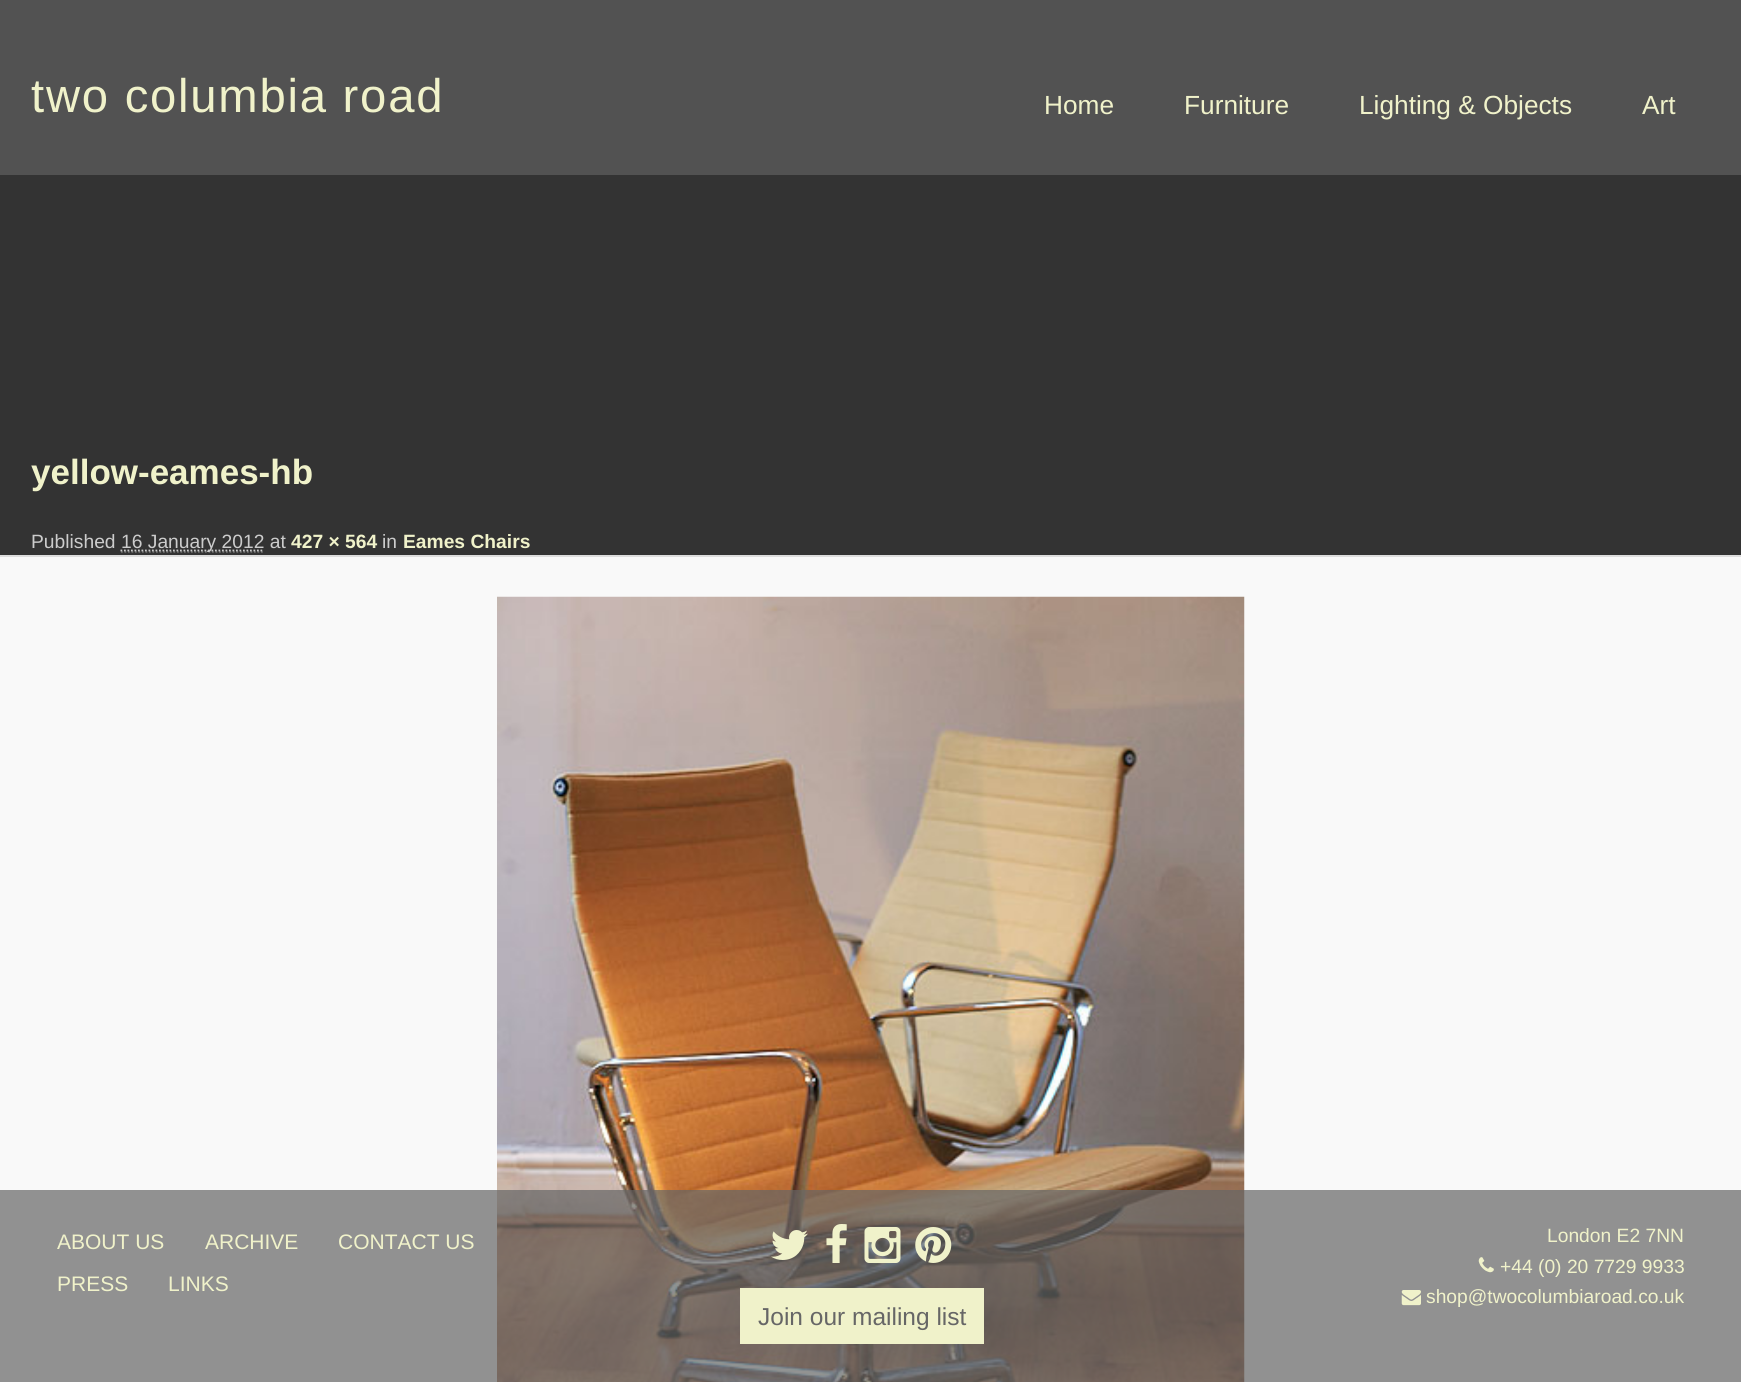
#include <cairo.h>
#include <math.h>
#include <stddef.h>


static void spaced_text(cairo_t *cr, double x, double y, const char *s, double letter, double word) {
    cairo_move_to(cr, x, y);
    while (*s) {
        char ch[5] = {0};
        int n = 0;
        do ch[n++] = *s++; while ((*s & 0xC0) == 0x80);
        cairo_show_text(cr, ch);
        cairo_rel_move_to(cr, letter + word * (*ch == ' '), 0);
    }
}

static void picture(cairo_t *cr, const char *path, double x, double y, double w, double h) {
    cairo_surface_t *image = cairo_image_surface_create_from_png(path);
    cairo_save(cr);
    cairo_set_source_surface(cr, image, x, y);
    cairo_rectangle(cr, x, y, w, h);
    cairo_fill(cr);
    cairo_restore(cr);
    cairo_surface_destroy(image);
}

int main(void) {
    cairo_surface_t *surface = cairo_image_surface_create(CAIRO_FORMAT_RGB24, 1741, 1382);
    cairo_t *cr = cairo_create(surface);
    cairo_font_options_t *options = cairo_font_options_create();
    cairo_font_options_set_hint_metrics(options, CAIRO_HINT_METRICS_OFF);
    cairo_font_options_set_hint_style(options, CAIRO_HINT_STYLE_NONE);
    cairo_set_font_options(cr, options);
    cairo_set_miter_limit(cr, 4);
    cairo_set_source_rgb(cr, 0.2, 0.2, 0.2);
    cairo_paint(cr);
    cairo_set_source_rgb(cr, 0.322, 0.322, 0.322);
    cairo_rectangle(cr, 0, 0, 1741, 175);
    cairo_fill(cr);
    cairo_select_font_face(cr, "Liberation Sans", CAIRO_FONT_SLANT_NORMAL, CAIRO_FONT_WEIGHT_NORMAL);
    cairo_set_font_size(cr, 47.25);
    cairo_set_source_rgb(cr, 0.941, 0.949, 0.792);
    spaced_text(cr, 31, 112, "two columbia road", 1.75, 0);
    cairo_set_font_size(cr, 26.25);
    cairo_move_to(cr, 1044, 114);
    cairo_show_text(cr, "Home");
    cairo_move_to(cr, 1184, 114);
    cairo_show_text(cr, "Furniture");
    cairo_move_to(cr, 1359, 114);
    cairo_show_text(cr, "Lighting & Objects");
    cairo_move_to(cr, 1642, 114);
    cairo_show_text(cr, "Art");
    cairo_select_font_face(cr, "Liberation Sans", CAIRO_FONT_SLANT_NORMAL, CAIRO_FONT_WEIGHT_BOLD);
    cairo_set_font_size(cr, 35);
    cairo_move_to(cr, 31, 484);
    cairo_show_text(cr, "yellow-eames-hb");
    cairo_select_font_face(cr, "Liberation Sans", CAIRO_FONT_SLANT_NORMAL, CAIRO_FONT_WEIGHT_NORMAL);
    cairo_set_font_size(cr, 19.25);
    cairo_set_source_rgb(cr, 0.8, 0.8, 0.8);
    cairo_move_to(cr, 31, 548);
    cairo_show_text(cr, "Published");
    cairo_new_path(cr);
    cairo_move_to(cr, 121, 552);
    cairo_line_to(cr, 264, 552);
    cairo_set_source_rgb(cr, 0.4, 0.4, 0.4);
    cairo_set_line_width(cr, 1.8);
    cairo_set_dash(cr, (double[]){1.75, 1.75}, 2, 0);
    cairo_stroke(cr);
    cairo_new_path(cr);
    cairo_move_to(cr, 120.5, 550.5);
    cairo_line_to(cr, 264, 550.5);
    cairo_set_source_rgb(cr, 0.8, 0.8, 0.8);
    cairo_stroke(cr);
    cairo_move_to(cr, 121, 548);
    cairo_show_text(cr, "16 January 2012 at");
    cairo_select_font_face(cr, "Liberation Sans", CAIRO_FONT_SLANT_NORMAL, CAIRO_FONT_WEIGHT_BOLD);
    cairo_set_source_rgb(cr, 0.941, 0.949, 0.792);
    cairo_move_to(cr, 291, 548);
    cairo_show_text(cr, "427 × 564");
    cairo_select_font_face(cr, "Liberation Sans", CAIRO_FONT_SLANT_NORMAL, CAIRO_FONT_WEIGHT_NORMAL);
    cairo_set_source_rgb(cr, 0.8, 0.8, 0.8);
    cairo_move_to(cr, 382, 548);
    cairo_show_text(cr, "in");
    cairo_select_font_face(cr, "Liberation Sans", CAIRO_FONT_SLANT_NORMAL, CAIRO_FONT_WEIGHT_BOLD);
    cairo_set_source_rgb(cr, 0.941, 0.949, 0.792);
    cairo_move_to(cr, 403, 548);
    cairo_show_text(cr, "Eames Chairs");
    cairo_set_source_rgb(cr, 0.976, 0.976, 0.976);
    cairo_rectangle(cr, 0, 557, 1741, 825);
    cairo_fill(cr);
    cairo_set_source_rgb(cr, 0.867, 0.867, 0.867);
    cairo_rectangle(cr, 0, 555, 1741, 2);
    cairo_fill(cr);
    picture(cr, "img1.png", 497, 596, 748, 786);
    cairo_set_source_rgba(cr, 0.4, 0.4, 0.4, 0.7);
    cairo_rectangle(cr, 0, 1190, 1741, 192);
    cairo_fill(cr);
    cairo_select_font_face(cr, "Liberation Sans", CAIRO_FONT_SLANT_NORMAL, CAIRO_FONT_WEIGHT_NORMAL);
    cairo_set_font_size(cr, 21);
    cairo_set_source_rgb(cr, 0.941, 0.949, 0.792);
    cairo_move_to(cr, 57, 1249);
    cairo_show_text(cr, "ABOUT US");
    cairo_move_to(cr, 205, 1249);
    cairo_show_text(cr, "ARCHIVE");
    cairo_move_to(cr, 338, 1249);
    cairo_show_text(cr, "CONTACT US");
    cairo_move_to(cr, 57, 1291);
    cairo_show_text(cr, "PRESS");
    cairo_move_to(cr, 168, 1291);
    cairo_show_text(cr, "LINKS");
    cairo_set_font_size(cr, 19.25);
    cairo_move_to(cr, 1547, 1242);
    cairo_show_text(cr, "London E2 7NN");
    picture(cr, "img2.png", 1478, 1257, 16, 16);
    cairo_move_to(cr, 1500, 1273);
    cairo_show_text(cr, "+44 (0) 20 7729 9933");
    picture(cr, "img3.png", 1401, 1290, 20, 16);
    cairo_move_to(cr, 1426, 1303);
    cairo_show_text(cr, "shop@twocolumbiaroad.co.uk");
    picture(cr, "img4.png", 771, 1230, 37, 30);
    picture(cr, "img5.png", 826, 1224, 21, 39);
    picture(cr, "img6.png", 864, 1227, 37, 36);
    picture(cr, "img7.png", 915, 1227, 37, 36);
    cairo_rectangle(cr, 740, 1288, 244, 56);
    cairo_fill(cr);
    cairo_set_font_size(cr, 24.5);
    cairo_set_source_rgb(cr, 0.4, 0.4, 0.4);
    cairo_move_to(cr, 758, 1325);
    cairo_show_text(cr, "Join our mailing list");
    cairo_surface_write_to_png(surface, "page.png");
    cairo_font_options_destroy(options);
    cairo_destroy(cr);
    cairo_surface_destroy(surface);
    return 0;
}
